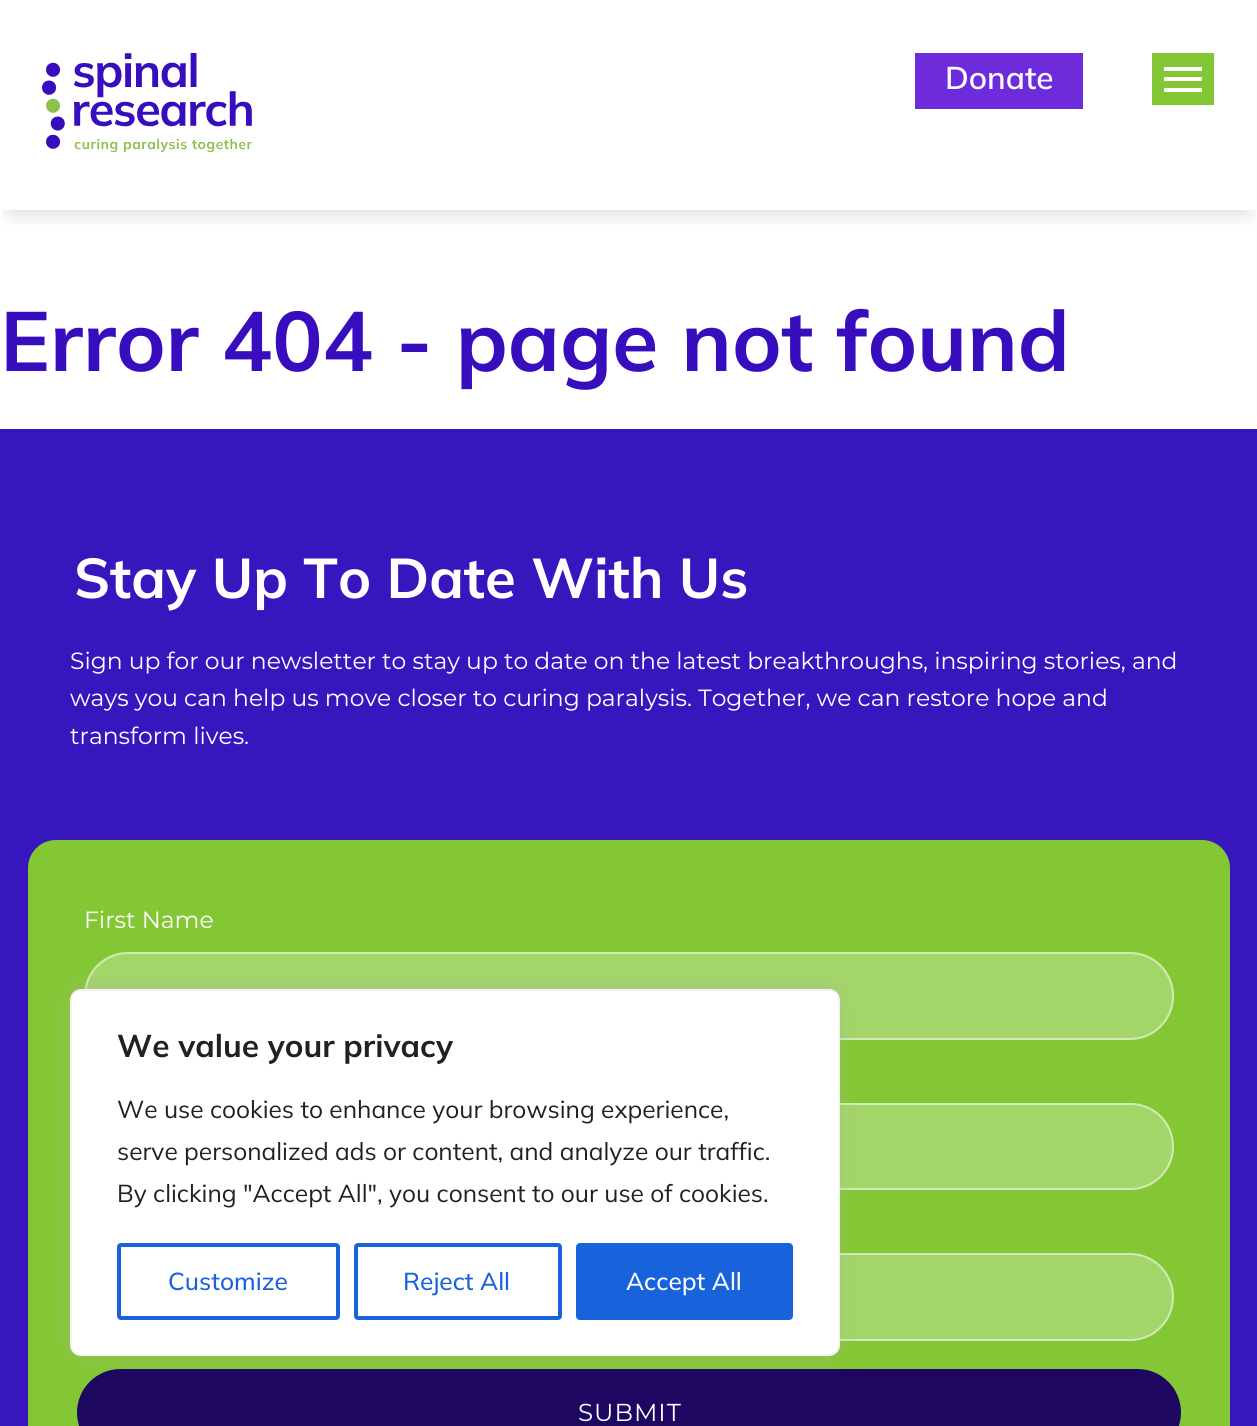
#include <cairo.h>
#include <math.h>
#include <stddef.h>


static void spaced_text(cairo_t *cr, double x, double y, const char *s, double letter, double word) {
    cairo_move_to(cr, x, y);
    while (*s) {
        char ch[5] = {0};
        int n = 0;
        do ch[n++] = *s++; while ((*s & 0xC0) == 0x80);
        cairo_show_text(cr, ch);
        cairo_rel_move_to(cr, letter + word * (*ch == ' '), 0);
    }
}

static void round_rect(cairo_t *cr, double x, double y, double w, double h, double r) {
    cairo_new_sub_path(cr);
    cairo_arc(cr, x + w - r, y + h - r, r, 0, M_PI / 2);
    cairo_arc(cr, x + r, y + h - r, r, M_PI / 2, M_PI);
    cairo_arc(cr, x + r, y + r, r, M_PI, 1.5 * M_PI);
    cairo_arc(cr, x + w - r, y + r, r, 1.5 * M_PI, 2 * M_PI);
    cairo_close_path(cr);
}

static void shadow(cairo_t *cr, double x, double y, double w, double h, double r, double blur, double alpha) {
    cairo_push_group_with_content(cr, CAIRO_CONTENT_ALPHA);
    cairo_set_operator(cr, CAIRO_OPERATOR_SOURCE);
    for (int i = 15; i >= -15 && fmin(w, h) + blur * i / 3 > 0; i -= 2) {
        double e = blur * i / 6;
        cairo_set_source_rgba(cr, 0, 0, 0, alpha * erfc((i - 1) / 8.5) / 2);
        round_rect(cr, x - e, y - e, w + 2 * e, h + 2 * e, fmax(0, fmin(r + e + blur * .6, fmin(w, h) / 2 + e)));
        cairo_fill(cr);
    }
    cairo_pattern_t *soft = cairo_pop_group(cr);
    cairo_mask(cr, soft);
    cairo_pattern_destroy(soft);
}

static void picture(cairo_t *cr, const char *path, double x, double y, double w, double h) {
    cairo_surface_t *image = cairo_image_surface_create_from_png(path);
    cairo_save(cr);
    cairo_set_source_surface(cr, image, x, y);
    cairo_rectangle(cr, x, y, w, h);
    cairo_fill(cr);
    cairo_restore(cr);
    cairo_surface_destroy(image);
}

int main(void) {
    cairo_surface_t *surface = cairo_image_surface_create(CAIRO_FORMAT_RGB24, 1257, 1426);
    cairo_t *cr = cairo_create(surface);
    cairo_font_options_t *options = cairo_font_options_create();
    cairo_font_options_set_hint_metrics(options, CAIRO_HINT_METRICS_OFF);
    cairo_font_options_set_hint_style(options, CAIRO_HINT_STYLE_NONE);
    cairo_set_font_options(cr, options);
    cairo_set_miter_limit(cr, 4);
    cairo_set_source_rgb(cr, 1, 1, 1);
    cairo_paint(cr);
    cairo_save(cr);
    cairo_rectangle(cr, 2, 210, 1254, 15);
    cairo_clip(cr);
    cairo_set_source_rgb(cr, 0, 0, 0);
    shadow(cr, 12, 25, 1234, 185, 0, 12, 0.2);
    cairo_restore(cr);
    picture(cr, "img1.png", 42, 53, 210, 99);
    cairo_set_source_rgb(cr, 0.427, 0.169, 0.863);
    cairo_rectangle(cr, 915, 53, 168, 56);
    cairo_fill(cr);
    cairo_select_font_face(cr, "Mulish SemiBold", CAIRO_FONT_SLANT_NORMAL, CAIRO_FONT_WEIGHT_NORMAL);
    cairo_set_font_size(cr, 31.5);
    cairo_set_source_rgb(cr, 1, 1, 1);
    cairo_move_to(cr, 945, 89);
    cairo_show_text(cr, "Donate");
    cairo_set_source_rgb(cr, 0.518, 0.78, 0.208);
    cairo_rectangle(cr, 1152, 53, 62, 52);
    cairo_fill(cr);
    cairo_set_source_rgb(cr, 1, 1, 1);
    cairo_rectangle(cr, 1164, 77, 38, 4);
    cairo_fill(cr);
    cairo_rectangle(cr, 1164, 67, 38, 4);
    cairo_fill(cr);
    cairo_rectangle(cr, 1164, 88, 38, 4);
    cairo_fill(cr);
    cairo_select_font_face(cr, "Mulish", CAIRO_FONT_SLANT_NORMAL, CAIRO_FONT_WEIGHT_BOLD);
    cairo_set_font_size(cr, 84);
    cairo_set_source_rgb(cr, 0.22, 0.051, 0.741);
    cairo_move_to(cr, 0, 371);
    cairo_show_text(cr, "Error 404 - page not found");
    cairo_set_source_rgb(cr, 0.22, 0.086, 0.741);
    cairo_rectangle(cr, 0, 429, 1257, 997);
    cairo_fill(cr);
    cairo_set_font_size(cr, 56);
    cairo_set_source_rgb(cr, 1, 1, 1);
    cairo_move_to(cr, 74, 598);
    cairo_show_text(cr, "Stay Up To Date With Us");
    cairo_select_font_face(cr, "Montserrat", CAIRO_FONT_SLANT_NORMAL, CAIRO_FONT_WEIGHT_NORMAL);
    cairo_set_font_size(cr, 23.45);
    cairo_move_to(cr, 70, 669);
    cairo_show_text(cr, "Sign up for our newsletter to stay up to date on the latest breakthroughs, inspiring stories, and");
    cairo_move_to(cr, 70, 706);
    cairo_show_text(cr, "ways you can help us move closer to curing paralysis. Together, we can restore hope and");
    cairo_move_to(cr, 70, 744);
    cairo_show_text(cr, "transform lives.");
    cairo_set_source_rgb(cr, 0.518, 0.78, 0.208);
    round_rect(cr, 28, 840, 1202, 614, 28);
    cairo_fill(cr);
    cairo_set_source_rgb(cr, 1, 1, 1);
    cairo_move_to(cr, 84, 928);
    cairo_show_text(cr, "First Name");
    cairo_set_source_rgb(cr, 0.639, 0.835, 0.408);
    round_rect(cr, 84, 952, 1090, 88, 44);
    cairo_fill(cr);
    round_rect(cr, 85, 953, 1088, 86, 43);
    cairo_set_source_rgba(cr, 1, 1, 1, 0.5);
    cairo_stroke(cr);
    cairo_set_source_rgb(cr, 0.639, 0.835, 0.408);
    round_rect(cr, 84, 1103, 1090, 87, 43.5);
    cairo_fill(cr);
    round_rect(cr, 85, 1104, 1088, 85, 42.5);
    cairo_set_source_rgba(cr, 1, 1, 1, 0.5);
    cairo_stroke(cr);
    cairo_set_source_rgb(cr, 0.639, 0.835, 0.408);
    round_rect(cr, 84, 1253, 1090, 88, 44);
    cairo_fill(cr);
    round_rect(cr, 85, 1254, 1088, 86, 43);
    cairo_set_source_rgba(cr, 1, 1, 1, 0.5);
    cairo_stroke(cr);
    cairo_set_source_rgb(cr, 0.118, 0.031, 0.38);
    round_rect(cr, 77, 1369, 1104, 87, 43.5);
    cairo_fill(cr);
    cairo_set_font_size(cr, 24.5);
    cairo_set_source_rgb(cr, 1, 1, 1);
    spaced_text(cr, 578, 1421, "SUBMIT", 1, 0);
    cairo_set_source_rgb(cr, 0.675, 0.671, 0.671);
    shadow(cr, 70, 987, 770, 368, 11, 9, 0.3);
    cairo_set_source_rgb(cr, 1, 1, 1);
    round_rect(cr, 71, 990, 768, 365, 10);
    cairo_fill_preserve(cr);
    cairo_set_source_rgb(cr, 0.957, 0.957, 0.957);
    cairo_stroke(cr);
    cairo_select_font_face(cr, "Mulish", CAIRO_FONT_SLANT_NORMAL, CAIRO_FONT_WEIGHT_BOLD);
    cairo_set_font_size(cr, 31.5);
    cairo_set_source_rgb(cr, 0.129, 0.129, 0.129);
    cairo_move_to(cr, 117, 1057);
    cairo_show_text(cr, "We value your privacy");
    cairo_select_font_face(cr, "Mulish", CAIRO_FONT_SLANT_NORMAL, CAIRO_FONT_WEIGHT_NORMAL);
    cairo_set_font_size(cr, 24.5);
    cairo_move_to(cr, 117, 1118);
    cairo_show_text(cr, "We use cookies to enhance your browsing experience,");
    cairo_move_to(cr, 117, 1160);
    cairo_show_text(cr, "serve personalized ads or content, and analyze our traffic.");
    cairo_move_to(cr, 117, 1202);
    cairo_show_text(cr, "By clicking \"Accept All\", you consent to our use of cookies.");
    round_rect(cr, 119, 1245, 219, 73, 2);
    cairo_set_source_rgb(cr, 0.094, 0.388, 0.863);
    cairo_set_line_width(cr, 4);
    cairo_stroke(cr);
    cairo_select_font_face(cr, "Mulish Medium", CAIRO_FONT_SLANT_NORMAL, CAIRO_FONT_WEIGHT_NORMAL);
    cairo_move_to(cr, 168, 1290);
    cairo_show_text(cr, "Customize");
    round_rect(cr, 356, 1245, 204, 73, 2);
    cairo_stroke(cr);
    cairo_move_to(cr, 403, 1290);
    cairo_show_text(cr, "Reject All");
    round_rect(cr, 578, 1245, 213, 73, 2);
    cairo_fill_preserve(cr);
    cairo_stroke(cr);
    cairo_set_source_rgb(cr, 1, 1, 1);
    cairo_move_to(cr, 626, 1290);
    cairo_show_text(cr, "Accept All");
    cairo_surface_write_to_png(surface, "page.png");
    cairo_font_options_destroy(options);
    cairo_destroy(cr);
    cairo_surface_destroy(surface);
    return 0;
}
